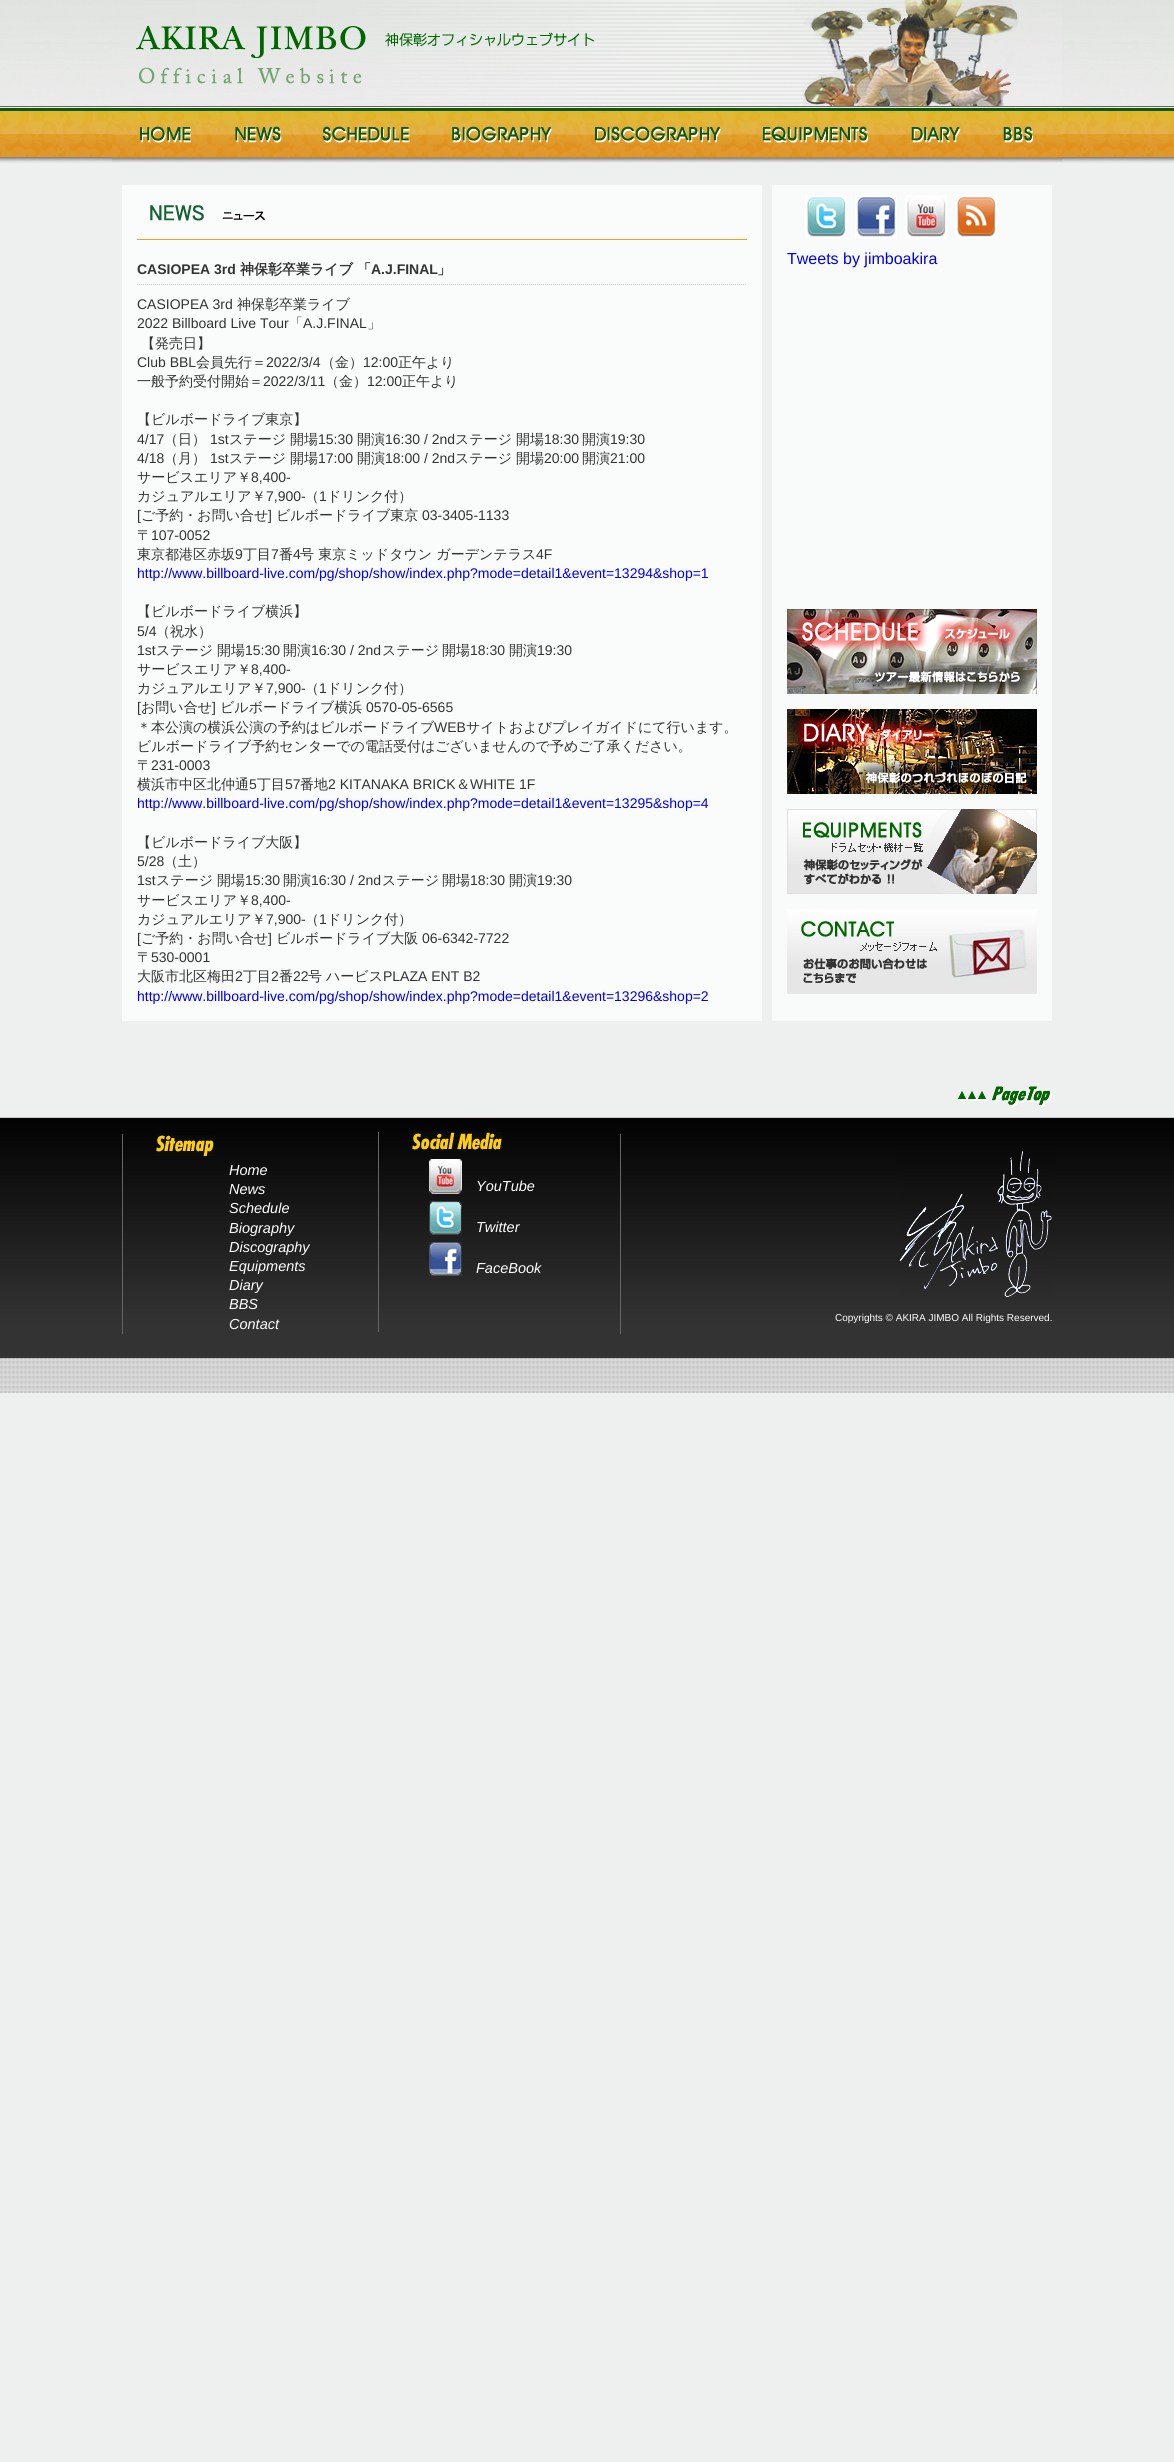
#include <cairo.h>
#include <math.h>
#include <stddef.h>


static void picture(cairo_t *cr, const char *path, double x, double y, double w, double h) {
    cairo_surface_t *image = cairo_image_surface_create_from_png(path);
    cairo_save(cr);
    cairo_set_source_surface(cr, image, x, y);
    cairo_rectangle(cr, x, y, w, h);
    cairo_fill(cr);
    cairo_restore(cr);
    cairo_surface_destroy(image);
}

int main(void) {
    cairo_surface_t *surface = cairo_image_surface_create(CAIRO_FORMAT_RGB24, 1174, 2462);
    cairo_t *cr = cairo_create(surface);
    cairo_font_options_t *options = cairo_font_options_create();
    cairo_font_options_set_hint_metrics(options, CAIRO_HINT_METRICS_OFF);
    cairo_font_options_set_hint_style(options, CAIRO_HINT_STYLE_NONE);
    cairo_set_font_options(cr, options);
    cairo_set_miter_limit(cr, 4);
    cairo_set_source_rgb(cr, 0.929, 0.941, 0.937);
    cairo_paint(cr);
    picture(cr, "img1.png", 0, 0, 1174, 163);
    picture(cr, "img2.png", 112, 0, 950, 108);
    picture(cr, "img3.png", 112, 111, 950, 51);
    picture(cr, "img4.png", 213, 111, 93, 47);
    picture(cr, "img5.png", 305, 129, 1, 5);
    cairo_set_source_rgb(cr, 0.976, 0.984, 0.98);
    cairo_rectangle(cr, 772, 185, 280, 836);
    cairo_fill(cr);
    picture(cr, "img6.png", 805, 195, 42, 44);
    picture(cr, "img7.png", 855, 195, 42, 44);
    picture(cr, "img8.png", 905, 195, 42, 44);
    picture(cr, "img9.png", 955, 195, 42, 44);
    cairo_select_font_face(cr, "Liberation Sans", CAIRO_FONT_SLANT_NORMAL, CAIRO_FONT_WEIGHT_NORMAL);
    cairo_set_font_size(cr, 16);
    cairo_set_source_rgb(cr, 0, 0, 0.933);
    cairo_move_to(cr, 787, 264);
    cairo_show_text(cr, "Tweets by jimboakira");
    picture(cr, "img10.png", 787, 609, 250, 85);
    picture(cr, "img11.png", 787, 709, 250, 85);
    picture(cr, "img12.png", 787, 809, 250, 85);
    picture(cr, "img13.png", 787, 909, 250, 85);
    cairo_set_source_rgb(cr, 0.98, 0.984, 0.984);
    cairo_rectangle(cr, 122, 185, 640, 836);
    cairo_fill(cr);
    picture(cr, "img14.png", 137, 205, 610, 35);
    cairo_new_path(cr);
    cairo_move_to(cr, 137, 284.5);
    cairo_line_to(cr, 747, 284.5);
    cairo_set_source_rgb(cr, 0.8, 0.8, 0.8);
    cairo_set_line_width(cr, 1);
    cairo_set_dash(cr, (double[]){1, 1}, 2, 0);
    cairo_stroke(cr);
    cairo_select_font_face(cr, "Liberation Sans", CAIRO_FONT_SLANT_NORMAL, CAIRO_FONT_WEIGHT_BOLD);
    cairo_set_font_size(cr, 14);
    cairo_set_source_rgb(cr, 0.2, 0.2, 0.2);
    cairo_move_to(cr, 137, 274);
    cairo_show_text(cr, "CASIOPEA 3rd");
    cairo_select_font_face(cr, "WenQuanYi Zen Hei", CAIRO_FONT_SLANT_NORMAL, CAIRO_FONT_WEIGHT_BOLD);
    cairo_move_to(cr, 240, 274);
    cairo_show_text(cr, "神保彰卒業ライブ");
    cairo_move_to(cr, 357, 274);
    cairo_show_text(cr, "「");
    cairo_select_font_face(cr, "Liberation Sans", CAIRO_FONT_SLANT_NORMAL, CAIRO_FONT_WEIGHT_BOLD);
    cairo_move_to(cr, 371, 274);
    cairo_show_text(cr, "A.J.FINAL");
    cairo_select_font_face(cr, "WenQuanYi Zen Hei", CAIRO_FONT_SLANT_NORMAL, CAIRO_FONT_WEIGHT_BOLD);
    cairo_move_to(cr, 437, 274);
    cairo_show_text(cr, "」");
    cairo_select_font_face(cr, "Liberation Sans", CAIRO_FONT_SLANT_NORMAL, CAIRO_FONT_WEIGHT_NORMAL);
    cairo_move_to(cr, 137, 309);
    cairo_show_text(cr, "CASIOPEA 3rd");
    cairo_select_font_face(cr, "WenQuanYi Zen Hei Medium", CAIRO_FONT_SLANT_NORMAL, CAIRO_FONT_WEIGHT_NORMAL);
    cairo_move_to(cr, 237, 309);
    cairo_show_text(cr, "神保彰卒業ライブ");
    cairo_select_font_face(cr, "Liberation Sans", CAIRO_FONT_SLANT_NORMAL, CAIRO_FONT_WEIGHT_NORMAL);
    cairo_move_to(cr, 137, 328);
    cairo_show_text(cr, "2022 Billboard Live Tour");
    cairo_select_font_face(cr, "WenQuanYi Zen Hei Medium", CAIRO_FONT_SLANT_NORMAL, CAIRO_FONT_WEIGHT_NORMAL);
    cairo_move_to(cr, 289, 328);
    cairo_show_text(cr, "「");
    cairo_select_font_face(cr, "Liberation Sans", CAIRO_FONT_SLANT_NORMAL, CAIRO_FONT_WEIGHT_NORMAL);
    cairo_move_to(cr, 303, 328);
    cairo_show_text(cr, "A.J.FINAL");
    cairo_select_font_face(cr, "WenQuanYi Zen Hei Medium", CAIRO_FONT_SLANT_NORMAL, CAIRO_FONT_WEIGHT_NORMAL);
    cairo_move_to(cr, 367, 328);
    cairo_show_text(cr, "」");
    cairo_move_to(cr, 141, 348);
    cairo_show_text(cr, "【発売日】");
    cairo_select_font_face(cr, "Liberation Sans", CAIRO_FONT_SLANT_NORMAL, CAIRO_FONT_WEIGHT_NORMAL);
    cairo_move_to(cr, 137, 367);
    cairo_show_text(cr, "Club BBL");
    cairo_select_font_face(cr, "WenQuanYi Zen Hei Medium", CAIRO_FONT_SLANT_NORMAL, CAIRO_FONT_WEIGHT_NORMAL);
    cairo_move_to(cr, 196, 367);
    cairo_show_text(cr, "会員先行＝");
    cairo_select_font_face(cr, "Liberation Sans", CAIRO_FONT_SLANT_NORMAL, CAIRO_FONT_WEIGHT_NORMAL);
    cairo_move_to(cr, 266, 367);
    cairo_show_text(cr, "2022/3/4");
    cairo_select_font_face(cr, "WenQuanYi Zen Hei Medium", CAIRO_FONT_SLANT_NORMAL, CAIRO_FONT_WEIGHT_NORMAL);
    cairo_move_to(cr, 321, 367);
    cairo_show_text(cr, "（金）");
    cairo_select_font_face(cr, "Liberation Sans", CAIRO_FONT_SLANT_NORMAL, CAIRO_FONT_WEIGHT_NORMAL);
    cairo_move_to(cr, 363, 367);
    cairo_show_text(cr, "12:00");
    cairo_select_font_face(cr, "WenQuanYi Zen Hei Medium", CAIRO_FONT_SLANT_NORMAL, CAIRO_FONT_WEIGHT_NORMAL);
    cairo_move_to(cr, 398, 367);
    cairo_show_text(cr, "正午より");
    cairo_move_to(cr, 137, 386);
    cairo_show_text(cr, "一般予約受付開始＝");
    cairo_select_font_face(cr, "Liberation Sans", CAIRO_FONT_SLANT_NORMAL, CAIRO_FONT_WEIGHT_NORMAL);
    cairo_move_to(cr, 263, 386);
    cairo_show_text(cr, "2022/3/11");
    cairo_select_font_face(cr, "WenQuanYi Zen Hei Medium", CAIRO_FONT_SLANT_NORMAL, CAIRO_FONT_WEIGHT_NORMAL);
    cairo_move_to(cr, 325, 386);
    cairo_show_text(cr, "（金）");
    cairo_select_font_face(cr, "Liberation Sans", CAIRO_FONT_SLANT_NORMAL, CAIRO_FONT_WEIGHT_NORMAL);
    cairo_move_to(cr, 367, 386);
    cairo_show_text(cr, "12:00");
    cairo_select_font_face(cr, "WenQuanYi Zen Hei Medium", CAIRO_FONT_SLANT_NORMAL, CAIRO_FONT_WEIGHT_NORMAL);
    cairo_move_to(cr, 402, 386);
    cairo_show_text(cr, "正午より");
    cairo_move_to(cr, 137, 424);
    cairo_show_text(cr, "【ビルボードライブ東京】");
    cairo_select_font_face(cr, "Liberation Sans", CAIRO_FONT_SLANT_NORMAL, CAIRO_FONT_WEIGHT_NORMAL);
    cairo_move_to(cr, 137, 444);
    cairo_show_text(cr, "4/17");
    cairo_select_font_face(cr, "WenQuanYi Zen Hei Medium", CAIRO_FONT_SLANT_NORMAL, CAIRO_FONT_WEIGHT_NORMAL);
    cairo_move_to(cr, 164, 444);
    cairo_show_text(cr, "（日）");
    cairo_select_font_face(cr, "Liberation Sans", CAIRO_FONT_SLANT_NORMAL, CAIRO_FONT_WEIGHT_NORMAL);
    cairo_move_to(cr, 210, 444);
    cairo_show_text(cr, "1st");
    cairo_select_font_face(cr, "WenQuanYi Zen Hei Medium", CAIRO_FONT_SLANT_NORMAL, CAIRO_FONT_WEIGHT_NORMAL);
    cairo_move_to(cr, 229, 444);
    cairo_show_text(cr, "ステージ");
    cairo_move_to(cr, 290, 444);
    cairo_show_text(cr, "開場");
    cairo_select_font_face(cr, "Liberation Sans", CAIRO_FONT_SLANT_NORMAL, CAIRO_FONT_WEIGHT_NORMAL);
    cairo_move_to(cr, 318, 444);
    cairo_show_text(cr, "15:30");
    cairo_select_font_face(cr, "WenQuanYi Zen Hei Medium", CAIRO_FONT_SLANT_NORMAL, CAIRO_FONT_WEIGHT_NORMAL);
    cairo_move_to(cr, 357, 444);
    cairo_show_text(cr, "開演");
    cairo_select_font_face(cr, "Liberation Sans", CAIRO_FONT_SLANT_NORMAL, CAIRO_FONT_WEIGHT_NORMAL);
    cairo_move_to(cr, 385, 444);
    cairo_show_text(cr, "16:30 / 2nd");
    cairo_select_font_face(cr, "WenQuanYi Zen Hei Medium", CAIRO_FONT_SLANT_NORMAL, CAIRO_FONT_WEIGHT_NORMAL);
    cairo_move_to(cr, 455, 444);
    cairo_show_text(cr, "ステージ");
    cairo_move_to(cr, 516, 444);
    cairo_show_text(cr, "開場");
    cairo_select_font_face(cr, "Liberation Sans", CAIRO_FONT_SLANT_NORMAL, CAIRO_FONT_WEIGHT_NORMAL);
    cairo_move_to(cr, 544, 444);
    cairo_show_text(cr, "18:30");
    cairo_select_font_face(cr, "WenQuanYi Zen Hei Medium", CAIRO_FONT_SLANT_NORMAL, CAIRO_FONT_WEIGHT_NORMAL);
    cairo_move_to(cr, 582, 444);
    cairo_show_text(cr, "開演");
    cairo_select_font_face(cr, "Liberation Sans", CAIRO_FONT_SLANT_NORMAL, CAIRO_FONT_WEIGHT_NORMAL);
    cairo_move_to(cr, 610, 444);
    cairo_show_text(cr, "19:30");
    cairo_move_to(cr, 137, 463);
    cairo_show_text(cr, "4/18");
    cairo_select_font_face(cr, "WenQuanYi Zen Hei Medium", CAIRO_FONT_SLANT_NORMAL, CAIRO_FONT_WEIGHT_NORMAL);
    cairo_move_to(cr, 164, 463);
    cairo_show_text(cr, "（月）");
    cairo_select_font_face(cr, "Liberation Sans", CAIRO_FONT_SLANT_NORMAL, CAIRO_FONT_WEIGHT_NORMAL);
    cairo_move_to(cr, 210, 463);
    cairo_show_text(cr, "1st");
    cairo_select_font_face(cr, "WenQuanYi Zen Hei Medium", CAIRO_FONT_SLANT_NORMAL, CAIRO_FONT_WEIGHT_NORMAL);
    cairo_move_to(cr, 229, 463);
    cairo_show_text(cr, "ステージ");
    cairo_move_to(cr, 290, 463);
    cairo_show_text(cr, "開場");
    cairo_select_font_face(cr, "Liberation Sans", CAIRO_FONT_SLANT_NORMAL, CAIRO_FONT_WEIGHT_NORMAL);
    cairo_move_to(cr, 318, 463);
    cairo_show_text(cr, "17:00");
    cairo_select_font_face(cr, "WenQuanYi Zen Hei Medium", CAIRO_FONT_SLANT_NORMAL, CAIRO_FONT_WEIGHT_NORMAL);
    cairo_move_to(cr, 357, 463);
    cairo_show_text(cr, "開演");
    cairo_select_font_face(cr, "Liberation Sans", CAIRO_FONT_SLANT_NORMAL, CAIRO_FONT_WEIGHT_NORMAL);
    cairo_move_to(cr, 385, 463);
    cairo_show_text(cr, "18:00 / 2nd");
    cairo_select_font_face(cr, "WenQuanYi Zen Hei Medium", CAIRO_FONT_SLANT_NORMAL, CAIRO_FONT_WEIGHT_NORMAL);
    cairo_move_to(cr, 455, 463);
    cairo_show_text(cr, "ステージ");
    cairo_move_to(cr, 516, 463);
    cairo_show_text(cr, "開場");
    cairo_select_font_face(cr, "Liberation Sans", CAIRO_FONT_SLANT_NORMAL, CAIRO_FONT_WEIGHT_NORMAL);
    cairo_move_to(cr, 544, 463);
    cairo_show_text(cr, "20:00");
    cairo_select_font_face(cr, "WenQuanYi Zen Hei Medium", CAIRO_FONT_SLANT_NORMAL, CAIRO_FONT_WEIGHT_NORMAL);
    cairo_move_to(cr, 582, 463);
    cairo_show_text(cr, "開演");
    cairo_select_font_face(cr, "Liberation Sans", CAIRO_FONT_SLANT_NORMAL, CAIRO_FONT_WEIGHT_NORMAL);
    cairo_move_to(cr, 610, 463);
    cairo_show_text(cr, "21:00");
    cairo_select_font_face(cr, "WenQuanYi Zen Hei Medium", CAIRO_FONT_SLANT_NORMAL, CAIRO_FONT_WEIGHT_NORMAL);
    cairo_move_to(cr, 137, 482);
    cairo_show_text(cr, "サービスエリア￥");
    cairo_select_font_face(cr, "Liberation Sans", CAIRO_FONT_SLANT_NORMAL, CAIRO_FONT_WEIGHT_NORMAL);
    cairo_move_to(cr, 251, 482);
    cairo_show_text(cr, "8,400-");
    cairo_select_font_face(cr, "WenQuanYi Zen Hei Medium", CAIRO_FONT_SLANT_NORMAL, CAIRO_FONT_WEIGHT_NORMAL);
    cairo_move_to(cr, 137, 501);
    cairo_show_text(cr, "カジュアルエリア￥");
    cairo_select_font_face(cr, "Liberation Sans", CAIRO_FONT_SLANT_NORMAL, CAIRO_FONT_WEIGHT_NORMAL);
    cairo_move_to(cr, 266, 501);
    cairo_show_text(cr, "7,900-");
    cairo_select_font_face(cr, "WenQuanYi Zen Hei Medium", CAIRO_FONT_SLANT_NORMAL, CAIRO_FONT_WEIGHT_NORMAL);
    cairo_move_to(cr, 305, 501);
    cairo_show_text(cr, "（");
    cairo_select_font_face(cr, "Liberation Sans", CAIRO_FONT_SLANT_NORMAL, CAIRO_FONT_WEIGHT_NORMAL);
    cairo_move_to(cr, 319, 501);
    cairo_show_text(cr, "1");
    cairo_select_font_face(cr, "WenQuanYi Zen Hei Medium", CAIRO_FONT_SLANT_NORMAL, CAIRO_FONT_WEIGHT_NORMAL);
    cairo_move_to(cr, 327, 501);
    cairo_show_text(cr, "ドリンク付）");
    cairo_select_font_face(cr, "Liberation Sans", CAIRO_FONT_SLANT_NORMAL, CAIRO_FONT_WEIGHT_NORMAL);
    cairo_move_to(cr, 137, 520);
    cairo_show_text(cr, "[");
    cairo_select_font_face(cr, "WenQuanYi Zen Hei Medium", CAIRO_FONT_SLANT_NORMAL, CAIRO_FONT_WEIGHT_NORMAL);
    cairo_move_to(cr, 141, 520);
    cairo_show_text(cr, "ご予約・お問い合せ");
    cairo_select_font_face(cr, "Liberation Sans", CAIRO_FONT_SLANT_NORMAL, CAIRO_FONT_WEIGHT_NORMAL);
    cairo_move_to(cr, 268, 520);
    cairo_show_text(cr, "]");
    cairo_select_font_face(cr, "WenQuanYi Zen Hei Medium", CAIRO_FONT_SLANT_NORMAL, CAIRO_FONT_WEIGHT_NORMAL);
    cairo_move_to(cr, 276, 520);
    cairo_show_text(cr, "ビルボードライブ東京");
    cairo_select_font_face(cr, "Liberation Sans", CAIRO_FONT_SLANT_NORMAL, CAIRO_FONT_WEIGHT_NORMAL);
    cairo_move_to(cr, 422, 520);
    cairo_show_text(cr, "03-3405-1133");
    cairo_select_font_face(cr, "WenQuanYi Zen Hei Medium", CAIRO_FONT_SLANT_NORMAL, CAIRO_FONT_WEIGHT_NORMAL);
    cairo_move_to(cr, 137, 540);
    cairo_show_text(cr, "〒");
    cairo_select_font_face(cr, "Liberation Sans", CAIRO_FONT_SLANT_NORMAL, CAIRO_FONT_WEIGHT_NORMAL);
    cairo_move_to(cr, 151, 540);
    cairo_show_text(cr, "107-0052");
    cairo_select_font_face(cr, "WenQuanYi Zen Hei Medium", CAIRO_FONT_SLANT_NORMAL, CAIRO_FONT_WEIGHT_NORMAL);
    cairo_move_to(cr, 137, 559);
    cairo_show_text(cr, "東京都港区赤坂");
    cairo_select_font_face(cr, "Liberation Sans", CAIRO_FONT_SLANT_NORMAL, CAIRO_FONT_WEIGHT_NORMAL);
    cairo_move_to(cr, 235, 559);
    cairo_show_text(cr, "9");
    cairo_select_font_face(cr, "WenQuanYi Zen Hei Medium", CAIRO_FONT_SLANT_NORMAL, CAIRO_FONT_WEIGHT_NORMAL);
    cairo_move_to(cr, 243, 559);
    cairo_show_text(cr, "丁目");
    cairo_select_font_face(cr, "Liberation Sans", CAIRO_FONT_SLANT_NORMAL, CAIRO_FONT_WEIGHT_NORMAL);
    cairo_move_to(cr, 271, 559);
    cairo_show_text(cr, "7");
    cairo_select_font_face(cr, "WenQuanYi Zen Hei Medium", CAIRO_FONT_SLANT_NORMAL, CAIRO_FONT_WEIGHT_NORMAL);
    cairo_move_to(cr, 279, 559);
    cairo_show_text(cr, "番");
    cairo_select_font_face(cr, "Liberation Sans", CAIRO_FONT_SLANT_NORMAL, CAIRO_FONT_WEIGHT_NORMAL);
    cairo_move_to(cr, 293, 559);
    cairo_show_text(cr, "4");
    cairo_select_font_face(cr, "WenQuanYi Zen Hei Medium", CAIRO_FONT_SLANT_NORMAL, CAIRO_FONT_WEIGHT_NORMAL);
    cairo_move_to(cr, 300, 559);
    cairo_show_text(cr, "号 東京ミッドタウン ガーデンテラス");
    cairo_select_font_face(cr, "Liberation Sans", CAIRO_FONT_SLANT_NORMAL, CAIRO_FONT_WEIGHT_NORMAL);
    cairo_move_to(cr, 536, 559);
    cairo_show_text(cr, "4F");
    cairo_set_source_rgb(cr, 0, 0, 0.933);
    cairo_move_to(cr, 137, 578);
    cairo_show_text(cr, "http://www.billboard-live.com/pg/shop/show/index.php?mode=detail1&event=13294&shop=1");
    cairo_select_font_face(cr, "WenQuanYi Zen Hei Medium", CAIRO_FONT_SLANT_NORMAL, CAIRO_FONT_WEIGHT_NORMAL);
    cairo_set_source_rgb(cr, 0.2, 0.2, 0.2);
    cairo_move_to(cr, 137, 616);
    cairo_show_text(cr, "【ビルボードライブ横浜】");
    cairo_select_font_face(cr, "Liberation Sans", CAIRO_FONT_SLANT_NORMAL, CAIRO_FONT_WEIGHT_NORMAL);
    cairo_move_to(cr, 137, 636);
    cairo_show_text(cr, "5/4");
    cairo_select_font_face(cr, "WenQuanYi Zen Hei Medium", CAIRO_FONT_SLANT_NORMAL, CAIRO_FONT_WEIGHT_NORMAL);
    cairo_move_to(cr, 156, 636);
    cairo_show_text(cr, "（祝水）");
    cairo_select_font_face(cr, "Liberation Sans", CAIRO_FONT_SLANT_NORMAL, CAIRO_FONT_WEIGHT_NORMAL);
    cairo_move_to(cr, 137, 655);
    cairo_show_text(cr, "1st");
    cairo_select_font_face(cr, "WenQuanYi Zen Hei Medium", CAIRO_FONT_SLANT_NORMAL, CAIRO_FONT_WEIGHT_NORMAL);
    cairo_move_to(cr, 156, 655);
    cairo_show_text(cr, "ステージ");
    cairo_move_to(cr, 217, 655);
    cairo_show_text(cr, "開場");
    cairo_select_font_face(cr, "Liberation Sans", CAIRO_FONT_SLANT_NORMAL, CAIRO_FONT_WEIGHT_NORMAL);
    cairo_move_to(cr, 245, 655);
    cairo_show_text(cr, "15:30");
    cairo_select_font_face(cr, "WenQuanYi Zen Hei Medium", CAIRO_FONT_SLANT_NORMAL, CAIRO_FONT_WEIGHT_NORMAL);
    cairo_move_to(cr, 283, 655);
    cairo_show_text(cr, "開演");
    cairo_select_font_face(cr, "Liberation Sans", CAIRO_FONT_SLANT_NORMAL, CAIRO_FONT_WEIGHT_NORMAL);
    cairo_move_to(cr, 311, 655);
    cairo_show_text(cr, "16:30 / 2nd");
    cairo_select_font_face(cr, "WenQuanYi Zen Hei Medium", CAIRO_FONT_SLANT_NORMAL, CAIRO_FONT_WEIGHT_NORMAL);
    cairo_move_to(cr, 382, 655);
    cairo_show_text(cr, "ステージ");
    cairo_move_to(cr, 442, 655);
    cairo_show_text(cr, "開場");
    cairo_select_font_face(cr, "Liberation Sans", CAIRO_FONT_SLANT_NORMAL, CAIRO_FONT_WEIGHT_NORMAL);
    cairo_move_to(cr, 470, 655);
    cairo_show_text(cr, "18:30");
    cairo_select_font_face(cr, "WenQuanYi Zen Hei Medium", CAIRO_FONT_SLANT_NORMAL, CAIRO_FONT_WEIGHT_NORMAL);
    cairo_move_to(cr, 509, 655);
    cairo_show_text(cr, "開演");
    cairo_select_font_face(cr, "Liberation Sans", CAIRO_FONT_SLANT_NORMAL, CAIRO_FONT_WEIGHT_NORMAL);
    cairo_move_to(cr, 537, 655);
    cairo_show_text(cr, "19:30");
    cairo_select_font_face(cr, "WenQuanYi Zen Hei Medium", CAIRO_FONT_SLANT_NORMAL, CAIRO_FONT_WEIGHT_NORMAL);
    cairo_move_to(cr, 137, 674);
    cairo_show_text(cr, "サービスエリア￥");
    cairo_select_font_face(cr, "Liberation Sans", CAIRO_FONT_SLANT_NORMAL, CAIRO_FONT_WEIGHT_NORMAL);
    cairo_move_to(cr, 251, 674);
    cairo_show_text(cr, "8,400-");
    cairo_select_font_face(cr, "WenQuanYi Zen Hei Medium", CAIRO_FONT_SLANT_NORMAL, CAIRO_FONT_WEIGHT_NORMAL);
    cairo_move_to(cr, 137, 693);
    cairo_show_text(cr, "カジュアルエリア￥");
    cairo_select_font_face(cr, "Liberation Sans", CAIRO_FONT_SLANT_NORMAL, CAIRO_FONT_WEIGHT_NORMAL);
    cairo_move_to(cr, 266, 693);
    cairo_show_text(cr, "7,900-");
    cairo_select_font_face(cr, "WenQuanYi Zen Hei Medium", CAIRO_FONT_SLANT_NORMAL, CAIRO_FONT_WEIGHT_NORMAL);
    cairo_move_to(cr, 305, 693);
    cairo_show_text(cr, "（");
    cairo_select_font_face(cr, "Liberation Sans", CAIRO_FONT_SLANT_NORMAL, CAIRO_FONT_WEIGHT_NORMAL);
    cairo_move_to(cr, 319, 693);
    cairo_show_text(cr, "1");
    cairo_select_font_face(cr, "WenQuanYi Zen Hei Medium", CAIRO_FONT_SLANT_NORMAL, CAIRO_FONT_WEIGHT_NORMAL);
    cairo_move_to(cr, 327, 693);
    cairo_show_text(cr, "ドリンク付）");
    cairo_select_font_face(cr, "Liberation Sans", CAIRO_FONT_SLANT_NORMAL, CAIRO_FONT_WEIGHT_NORMAL);
    cairo_move_to(cr, 137, 712);
    cairo_show_text(cr, "[");
    cairo_select_font_face(cr, "WenQuanYi Zen Hei Medium", CAIRO_FONT_SLANT_NORMAL, CAIRO_FONT_WEIGHT_NORMAL);
    cairo_move_to(cr, 141, 712);
    cairo_show_text(cr, "お問い合せ");
    cairo_select_font_face(cr, "Liberation Sans", CAIRO_FONT_SLANT_NORMAL, CAIRO_FONT_WEIGHT_NORMAL);
    cairo_move_to(cr, 212, 712);
    cairo_show_text(cr, "]");
    cairo_select_font_face(cr, "WenQuanYi Zen Hei Medium", CAIRO_FONT_SLANT_NORMAL, CAIRO_FONT_WEIGHT_NORMAL);
    cairo_move_to(cr, 220, 712);
    cairo_show_text(cr, "ビルボードライブ横浜");
    cairo_select_font_face(cr, "Liberation Sans", CAIRO_FONT_SLANT_NORMAL, CAIRO_FONT_WEIGHT_NORMAL);
    cairo_move_to(cr, 366, 712);
    cairo_show_text(cr, "0570-05-6565");
    cairo_select_font_face(cr, "WenQuanYi Zen Hei Medium", CAIRO_FONT_SLANT_NORMAL, CAIRO_FONT_WEIGHT_NORMAL);
    cairo_move_to(cr, 137, 732);
    cairo_show_text(cr, "＊本公演の横浜公演の予約はビルボードライブ");
    cairo_select_font_face(cr, "Liberation Sans", CAIRO_FONT_SLANT_NORMAL, CAIRO_FONT_WEIGHT_NORMAL);
    cairo_move_to(cr, 434, 732);
    cairo_show_text(cr, "WEB");
    cairo_select_font_face(cr, "WenQuanYi Zen Hei Medium", CAIRO_FONT_SLANT_NORMAL, CAIRO_FONT_WEIGHT_NORMAL);
    cairo_move_to(cr, 466, 732);
    cairo_show_text(cr, "サイトおよびプレイガイドにて行います。");
    cairo_move_to(cr, 137, 751);
    cairo_show_text(cr, "ビルボードライブ予約センターでの電話受付はございませんので予めご了承ください。");
    cairo_move_to(cr, 137, 770);
    cairo_show_text(cr, "〒");
    cairo_select_font_face(cr, "Liberation Sans", CAIRO_FONT_SLANT_NORMAL, CAIRO_FONT_WEIGHT_NORMAL);
    cairo_move_to(cr, 151, 770);
    cairo_show_text(cr, "231-0003");
    cairo_select_font_face(cr, "WenQuanYi Zen Hei Medium", CAIRO_FONT_SLANT_NORMAL, CAIRO_FONT_WEIGHT_NORMAL);
    cairo_move_to(cr, 137, 789);
    cairo_show_text(cr, "横浜市中区北仲通");
    cairo_select_font_face(cr, "Liberation Sans", CAIRO_FONT_SLANT_NORMAL, CAIRO_FONT_WEIGHT_NORMAL);
    cairo_move_to(cr, 249, 789);
    cairo_show_text(cr, "5");
    cairo_select_font_face(cr, "WenQuanYi Zen Hei Medium", CAIRO_FONT_SLANT_NORMAL, CAIRO_FONT_WEIGHT_NORMAL);
    cairo_move_to(cr, 257, 789);
    cairo_show_text(cr, "丁目");
    cairo_select_font_face(cr, "Liberation Sans", CAIRO_FONT_SLANT_NORMAL, CAIRO_FONT_WEIGHT_NORMAL);
    cairo_move_to(cr, 285, 789);
    cairo_show_text(cr, "57");
    cairo_select_font_face(cr, "WenQuanYi Zen Hei Medium", CAIRO_FONT_SLANT_NORMAL, CAIRO_FONT_WEIGHT_NORMAL);
    cairo_move_to(cr, 300, 789);
    cairo_show_text(cr, "番地");
    cairo_select_font_face(cr, "Liberation Sans", CAIRO_FONT_SLANT_NORMAL, CAIRO_FONT_WEIGHT_NORMAL);
    cairo_move_to(cr, 328, 789);
    cairo_show_text(cr, "2 KITANAKA BRICK");
    cairo_select_font_face(cr, "WenQuanYi Zen Hei Medium", CAIRO_FONT_SLANT_NORMAL, CAIRO_FONT_WEIGHT_NORMAL);
    cairo_move_to(cr, 456, 789);
    cairo_show_text(cr, "＆");
    cairo_select_font_face(cr, "Liberation Sans", CAIRO_FONT_SLANT_NORMAL, CAIRO_FONT_WEIGHT_NORMAL);
    cairo_move_to(cr, 470, 789);
    cairo_show_text(cr, "WHITE 1F");
    cairo_set_source_rgb(cr, 0, 0, 0.933);
    cairo_move_to(cr, 137, 808);
    cairo_show_text(cr, "http://www.billboard-live.com/pg/shop/show/index.php?mode=detail1&event=13295&shop=4");
    cairo_select_font_face(cr, "WenQuanYi Zen Hei Medium", CAIRO_FONT_SLANT_NORMAL, CAIRO_FONT_WEIGHT_NORMAL);
    cairo_set_source_rgb(cr, 0.2, 0.2, 0.2);
    cairo_move_to(cr, 137, 847);
    cairo_show_text(cr, "【ビルボードライブ大阪】");
    cairo_select_font_face(cr, "Liberation Sans", CAIRO_FONT_SLANT_NORMAL, CAIRO_FONT_WEIGHT_NORMAL);
    cairo_move_to(cr, 137, 866);
    cairo_show_text(cr, "5/28");
    cairo_select_font_face(cr, "WenQuanYi Zen Hei Medium", CAIRO_FONT_SLANT_NORMAL, CAIRO_FONT_WEIGHT_NORMAL);
    cairo_move_to(cr, 164, 866);
    cairo_show_text(cr, "（土）");
    cairo_select_font_face(cr, "Liberation Sans", CAIRO_FONT_SLANT_NORMAL, CAIRO_FONT_WEIGHT_NORMAL);
    cairo_move_to(cr, 137, 885);
    cairo_show_text(cr, "1st");
    cairo_select_font_face(cr, "WenQuanYi Zen Hei Medium", CAIRO_FONT_SLANT_NORMAL, CAIRO_FONT_WEIGHT_NORMAL);
    cairo_move_to(cr, 156, 885);
    cairo_show_text(cr, "ステージ");
    cairo_move_to(cr, 217, 885);
    cairo_show_text(cr, "開場");
    cairo_select_font_face(cr, "Liberation Sans", CAIRO_FONT_SLANT_NORMAL, CAIRO_FONT_WEIGHT_NORMAL);
    cairo_move_to(cr, 245, 885);
    cairo_show_text(cr, "15:30");
    cairo_select_font_face(cr, "WenQuanYi Zen Hei Medium", CAIRO_FONT_SLANT_NORMAL, CAIRO_FONT_WEIGHT_NORMAL);
    cairo_move_to(cr, 283, 885);
    cairo_show_text(cr, "開演");
    cairo_select_font_face(cr, "Liberation Sans", CAIRO_FONT_SLANT_NORMAL, CAIRO_FONT_WEIGHT_NORMAL);
    cairo_move_to(cr, 311, 885);
    cairo_show_text(cr, "16:30 / 2nd");
    cairo_select_font_face(cr, "WenQuanYi Zen Hei Medium", CAIRO_FONT_SLANT_NORMAL, CAIRO_FONT_WEIGHT_NORMAL);
    cairo_move_to(cr, 382, 885);
    cairo_show_text(cr, "ステージ");
    cairo_move_to(cr, 442, 885);
    cairo_show_text(cr, "開場");
    cairo_select_font_face(cr, "Liberation Sans", CAIRO_FONT_SLANT_NORMAL, CAIRO_FONT_WEIGHT_NORMAL);
    cairo_move_to(cr, 470, 885);
    cairo_show_text(cr, "18:30");
    cairo_select_font_face(cr, "WenQuanYi Zen Hei Medium", CAIRO_FONT_SLANT_NORMAL, CAIRO_FONT_WEIGHT_NORMAL);
    cairo_move_to(cr, 509, 885);
    cairo_show_text(cr, "開演");
    cairo_select_font_face(cr, "Liberation Sans", CAIRO_FONT_SLANT_NORMAL, CAIRO_FONT_WEIGHT_NORMAL);
    cairo_move_to(cr, 537, 885);
    cairo_show_text(cr, "19:30");
    cairo_select_font_face(cr, "WenQuanYi Zen Hei Medium", CAIRO_FONT_SLANT_NORMAL, CAIRO_FONT_WEIGHT_NORMAL);
    cairo_move_to(cr, 137, 905);
    cairo_show_text(cr, "サービスエリア￥");
    cairo_select_font_face(cr, "Liberation Sans", CAIRO_FONT_SLANT_NORMAL, CAIRO_FONT_WEIGHT_NORMAL);
    cairo_move_to(cr, 251, 905);
    cairo_show_text(cr, "8,400-");
    cairo_select_font_face(cr, "WenQuanYi Zen Hei Medium", CAIRO_FONT_SLANT_NORMAL, CAIRO_FONT_WEIGHT_NORMAL);
    cairo_move_to(cr, 137, 924);
    cairo_show_text(cr, "カジュアルエリア￥");
    cairo_select_font_face(cr, "Liberation Sans", CAIRO_FONT_SLANT_NORMAL, CAIRO_FONT_WEIGHT_NORMAL);
    cairo_move_to(cr, 266, 924);
    cairo_show_text(cr, "7,900-");
    cairo_select_font_face(cr, "WenQuanYi Zen Hei Medium", CAIRO_FONT_SLANT_NORMAL, CAIRO_FONT_WEIGHT_NORMAL);
    cairo_move_to(cr, 305, 924);
    cairo_show_text(cr, "（");
    cairo_select_font_face(cr, "Liberation Sans", CAIRO_FONT_SLANT_NORMAL, CAIRO_FONT_WEIGHT_NORMAL);
    cairo_move_to(cr, 319, 924);
    cairo_show_text(cr, "1");
    cairo_select_font_face(cr, "WenQuanYi Zen Hei Medium", CAIRO_FONT_SLANT_NORMAL, CAIRO_FONT_WEIGHT_NORMAL);
    cairo_move_to(cr, 327, 924);
    cairo_show_text(cr, "ドリンク付）");
    cairo_select_font_face(cr, "Liberation Sans", CAIRO_FONT_SLANT_NORMAL, CAIRO_FONT_WEIGHT_NORMAL);
    cairo_move_to(cr, 137, 943);
    cairo_show_text(cr, "[");
    cairo_select_font_face(cr, "WenQuanYi Zen Hei Medium", CAIRO_FONT_SLANT_NORMAL, CAIRO_FONT_WEIGHT_NORMAL);
    cairo_move_to(cr, 141, 943);
    cairo_show_text(cr, "ご予約・お問い合せ");
    cairo_select_font_face(cr, "Liberation Sans", CAIRO_FONT_SLANT_NORMAL, CAIRO_FONT_WEIGHT_NORMAL);
    cairo_move_to(cr, 268, 943);
    cairo_show_text(cr, "]");
    cairo_select_font_face(cr, "WenQuanYi Zen Hei Medium", CAIRO_FONT_SLANT_NORMAL, CAIRO_FONT_WEIGHT_NORMAL);
    cairo_move_to(cr, 276, 943);
    cairo_show_text(cr, "ビルボードライブ大阪");
    cairo_select_font_face(cr, "Liberation Sans", CAIRO_FONT_SLANT_NORMAL, CAIRO_FONT_WEIGHT_NORMAL);
    cairo_move_to(cr, 422, 943);
    cairo_show_text(cr, "06-6342-7722");
    cairo_select_font_face(cr, "WenQuanYi Zen Hei Medium", CAIRO_FONT_SLANT_NORMAL, CAIRO_FONT_WEIGHT_NORMAL);
    cairo_move_to(cr, 137, 962);
    cairo_show_text(cr, "〒");
    cairo_select_font_face(cr, "Liberation Sans", CAIRO_FONT_SLANT_NORMAL, CAIRO_FONT_WEIGHT_NORMAL);
    cairo_move_to(cr, 151, 962);
    cairo_show_text(cr, "530-0001");
    cairo_select_font_face(cr, "WenQuanYi Zen Hei Medium", CAIRO_FONT_SLANT_NORMAL, CAIRO_FONT_WEIGHT_NORMAL);
    cairo_move_to(cr, 137, 981);
    cairo_show_text(cr, "大阪市北区梅田");
    cairo_select_font_face(cr, "Liberation Sans", CAIRO_FONT_SLANT_NORMAL, CAIRO_FONT_WEIGHT_NORMAL);
    cairo_move_to(cr, 235, 981);
    cairo_show_text(cr, "2");
    cairo_select_font_face(cr, "WenQuanYi Zen Hei Medium", CAIRO_FONT_SLANT_NORMAL, CAIRO_FONT_WEIGHT_NORMAL);
    cairo_move_to(cr, 243, 981);
    cairo_show_text(cr, "丁目");
    cairo_select_font_face(cr, "Liberation Sans", CAIRO_FONT_SLANT_NORMAL, CAIRO_FONT_WEIGHT_NORMAL);
    cairo_move_to(cr, 271, 981);
    cairo_show_text(cr, "2");
    cairo_select_font_face(cr, "WenQuanYi Zen Hei Medium", CAIRO_FONT_SLANT_NORMAL, CAIRO_FONT_WEIGHT_NORMAL);
    cairo_move_to(cr, 279, 981);
    cairo_show_text(cr, "番");
    cairo_select_font_face(cr, "Liberation Sans", CAIRO_FONT_SLANT_NORMAL, CAIRO_FONT_WEIGHT_NORMAL);
    cairo_move_to(cr, 293, 981);
    cairo_show_text(cr, "22");
    cairo_select_font_face(cr, "WenQuanYi Zen Hei Medium", CAIRO_FONT_SLANT_NORMAL, CAIRO_FONT_WEIGHT_NORMAL);
    cairo_move_to(cr, 308, 981);
    cairo_show_text(cr, "号");
    cairo_move_to(cr, 326, 981);
    cairo_show_text(cr, "ハービス");
    cairo_select_font_face(cr, "Liberation Sans", CAIRO_FONT_SLANT_NORMAL, CAIRO_FONT_WEIGHT_NORMAL);
    cairo_move_to(cr, 383, 981);
    cairo_show_text(cr, "PLAZA ENT B2");
    cairo_set_source_rgb(cr, 0, 0, 0.933);
    cairo_move_to(cr, 137, 1001);
    cairo_show_text(cr, "http://www.billboard-live.com/pg/shop/show/index.php?mode=detail1&event=13296&shop=2");
    picture(cr, "img15.png", 958, 1086, 94, 21);
    picture(cr, "img16.png", 0, 1117, 1174, 276);
    cairo_set_source_rgb(cr, 0.4, 0.4, 0.4);
    cairo_rectangle(cr, 122, 1134, 1, 200);
    cairo_fill(cr);
    picture(cr, "img17.png", 156, 1135, 58, 21);
    cairo_select_font_face(cr, "Liberation Sans", CAIRO_FONT_SLANT_ITALIC, CAIRO_FONT_WEIGHT_NORMAL);
    cairo_set_font_size(cr, 14.5);
    cairo_set_source_rgb(cr, 1, 1, 1);
    cairo_move_to(cr, 229, 1175);
    cairo_show_text(cr, "Home");
    cairo_move_to(cr, 229, 1194);
    cairo_show_text(cr, "News");
    cairo_move_to(cr, 229, 1213);
    cairo_show_text(cr, "Schedule");
    cairo_move_to(cr, 229, 1233);
    cairo_show_text(cr, "Biography");
    cairo_move_to(cr, 229, 1252);
    cairo_show_text(cr, "Discography");
    cairo_move_to(cr, 229, 1271);
    cairo_show_text(cr, "Equipments");
    cairo_move_to(cr, 229, 1290);
    cairo_show_text(cr, "Diary");
    cairo_move_to(cr, 229, 1309);
    cairo_show_text(cr, "BBS");
    cairo_move_to(cr, 229, 1329);
    cairo_show_text(cr, "Contact");
    cairo_set_source_rgb(cr, 0.4, 0.4, 0.4);
    cairo_rectangle(cr, 378, 1132, 1, 200);
    cairo_fill(cr);
    picture(cr, "img18.png", 412, 1132, 90, 18);
    picture(cr, "img19.png", 429, 1159, 33, 35);
    cairo_set_source_rgb(cr, 1, 1, 1);
    cairo_move_to(cr, 476, 1191);
    cairo_show_text(cr, "YouTube");
    picture(cr, "img20.png", 429, 1201, 33, 34);
    cairo_move_to(cr, 476, 1232);
    cairo_show_text(cr, "Twitter");
    picture(cr, "img21.png", 429, 1242, 33, 34);
    cairo_move_to(cr, 476, 1273);
    cairo_show_text(cr, "FaceBook");
    cairo_set_source_rgb(cr, 0.4, 0.4, 0.4);
    cairo_rectangle(cr, 620, 1134, 1, 200);
    cairo_fill(cr);
    picture(cr, "img22.png", 899, 1151, 153, 147);
    cairo_select_font_face(cr, "Liberation Sans", CAIRO_FONT_SLANT_NORMAL, CAIRO_FONT_WEIGHT_NORMAL);
    cairo_set_font_size(cr, 10);
    cairo_set_source_rgb(cr, 1, 1, 1);
    cairo_move_to(cr, 835, 1321);
    cairo_show_text(cr, "Copyrights © AKIRA JIMBO All Rights Reserved.");
    cairo_surface_write_to_png(surface, "page.png");
    cairo_font_options_destroy(options);
    cairo_destroy(cr);
    cairo_surface_destroy(surface);
    return 0;
}
